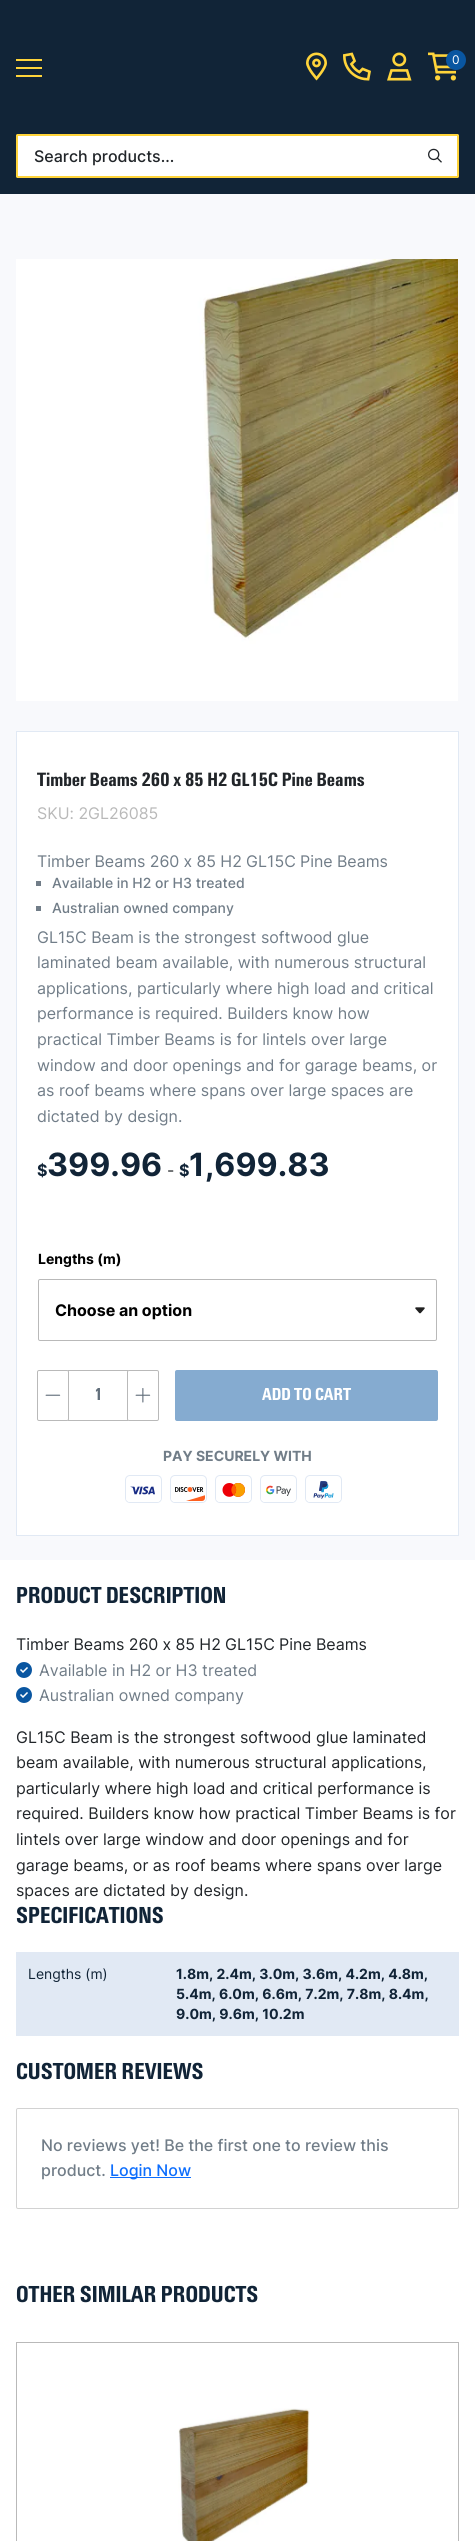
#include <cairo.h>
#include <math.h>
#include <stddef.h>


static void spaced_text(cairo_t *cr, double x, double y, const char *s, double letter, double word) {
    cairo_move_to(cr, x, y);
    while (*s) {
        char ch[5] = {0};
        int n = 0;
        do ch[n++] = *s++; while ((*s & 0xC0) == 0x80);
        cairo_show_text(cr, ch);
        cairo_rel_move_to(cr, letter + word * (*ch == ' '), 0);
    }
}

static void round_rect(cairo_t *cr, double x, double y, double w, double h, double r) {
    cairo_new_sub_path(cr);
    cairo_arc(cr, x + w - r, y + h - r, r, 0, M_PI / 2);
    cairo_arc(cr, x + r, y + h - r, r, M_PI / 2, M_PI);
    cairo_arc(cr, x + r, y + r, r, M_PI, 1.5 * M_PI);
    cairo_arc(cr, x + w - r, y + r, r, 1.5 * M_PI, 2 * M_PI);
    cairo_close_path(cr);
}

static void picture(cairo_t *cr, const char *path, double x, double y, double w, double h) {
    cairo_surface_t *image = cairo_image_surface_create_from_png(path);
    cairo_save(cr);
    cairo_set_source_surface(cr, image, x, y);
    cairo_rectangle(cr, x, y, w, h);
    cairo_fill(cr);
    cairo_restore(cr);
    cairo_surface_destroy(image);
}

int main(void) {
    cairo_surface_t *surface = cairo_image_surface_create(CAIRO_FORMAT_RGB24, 475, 2541);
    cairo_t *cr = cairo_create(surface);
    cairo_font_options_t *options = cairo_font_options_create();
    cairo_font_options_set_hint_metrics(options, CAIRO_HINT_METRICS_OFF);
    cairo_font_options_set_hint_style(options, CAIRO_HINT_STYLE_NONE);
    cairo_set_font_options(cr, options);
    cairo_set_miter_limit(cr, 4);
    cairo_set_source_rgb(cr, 1, 1, 1);
    cairo_paint(cr);
    cairo_set_source_rgb(cr, 0.067, 0.141, 0.216);
    cairo_rectangle(cr, 0, 0, 475, 194);
    cairo_fill(cr);
    cairo_set_source_rgb(cr, 1, 0.831, 0.227);
    cairo_rectangle(cr, 16, 59, 26, 2);
    cairo_fill(cr);
    cairo_rectangle(cr, 16, 67, 26, 2);
    cairo_fill(cr);
    cairo_rectangle(cr, 16, 75, 26, 2);
    cairo_fill(cr);
    picture(cr, "img1.png", 306, 52, 21, 29);
    picture(cr, "img2.png", 343, 52, 28, 29);
    picture(cr, "img3.png", 387, 52, 25, 29);
    picture(cr, "img4.png", 428, 52, 28, 29);
    cairo_set_source_rgb(cr, 0.039, 0.337, 0.631);
    cairo_arc(cr, 456, 60, 10, 0, 2 * M_PI);
    cairo_fill(cr);
    cairo_select_font_face(cr, "Inter", CAIRO_FONT_SLANT_NORMAL, CAIRO_FONT_WEIGHT_NORMAL);
    cairo_set_font_size(cr, 12);
    cairo_set_source_rgb(cr, 1, 1, 1);
    cairo_move_to(cr, 452, 64);
    cairo_show_text(cr, "0");
    round_rect(cr, 17, 135, 441, 42, 1);
    cairo_set_source_rgb(cr, 1, 0.831, 0.227);
    cairo_stroke(cr);
    cairo_set_source_rgb(cr, 1, 1, 1);
    round_rect(cr, 17, 135, 441, 42, 1);
    cairo_fill_preserve(cr);
    cairo_set_source_rgb(cr, 1, 0.831, 0.227);
    cairo_stroke(cr);
    cairo_select_font_face(cr, "Inter Medium", CAIRO_FONT_SLANT_NORMAL, CAIRO_FONT_WEIGHT_NORMAL);
    cairo_set_font_size(cr, 16);
    cairo_set_source_rgb(cr, 0.129, 0.145, 0.161);
    cairo_move_to(cr, 34, 162);
    cairo_show_text(cr, "Search products...");
    picture(cr, "img5.png", 428, 148, 14, 15);
    cairo_set_source_rgb(cr, 0.969, 0.976, 0.988);
    cairo_rectangle(cr, 0, 194, 475, 1366);
    cairo_fill(cr);
    picture(cr, "img6.png", 16, 259, 442, 442);
    cairo_set_source_rgb(cr, 1, 1, 1);
    cairo_rectangle(cr, 16.5, 731.5, 442, 804);
    cairo_fill_preserve(cr);
    cairo_set_source_rgb(cr, 0.882, 0.914, 0.957);
    cairo_set_line_width(cr, 1);
    cairo_stroke(cr);
    cairo_select_font_face(cr, "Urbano", CAIRO_FONT_SLANT_NORMAL, CAIRO_FONT_WEIGHT_BOLD);
    cairo_set_font_size(cr, 20);
    cairo_set_source_rgb(cr, 0.129, 0.145, 0.161);
    cairo_move_to(cr, 37, 786);
    cairo_show_text(cr, "Timber Beams 260 x 85 H2 GL15C Pine Beams");
    cairo_select_font_face(cr, "Inter", CAIRO_FONT_SLANT_NORMAL, CAIRO_FONT_WEIGHT_NORMAL);
    cairo_set_font_size(cr, 16);
    cairo_set_source_rgb(cr, 0.725, 0.725, 0.725);
    cairo_move_to(cr, 37, 819);
    cairo_show_text(cr, "SKU: 2GL26085");
    cairo_set_source_rgb(cr, 0.443, 0.49, 0.533);
    spaced_text(cr, 37, 867, "Timber Beams 260 x 85 H2 GL15C Pine Beams", 0, -0.25);
    cairo_rectangle(cr, 36, 881, 5, 5);
    cairo_fill(cr);
    cairo_select_font_face(cr, "Inter Medium", CAIRO_FONT_SLANT_NORMAL, CAIRO_FONT_WEIGHT_NORMAL);
    cairo_set_font_size(cr, 14);
    cairo_move_to(cr, 52, 888);
    cairo_show_text(cr, "Available in H2 or H3 treated");
    cairo_rectangle(cr, 36, 906, 5, 5);
    cairo_fill(cr);
    cairo_move_to(cr, 52, 913);
    cairo_show_text(cr, "Australian owned company");
    cairo_select_font_face(cr, "Inter", CAIRO_FONT_SLANT_NORMAL, CAIRO_FONT_WEIGHT_NORMAL);
    cairo_set_font_size(cr, 16);
    cairo_move_to(cr, 37, 943);
    cairo_show_text(cr, "GL15C Beam is the strongest softwood glue");
    cairo_move_to(cr, 37, 968);
    cairo_show_text(cr, "laminated beam available, with numerous structural");
    cairo_move_to(cr, 37, 994);
    cairo_show_text(cr, "applications, particularly where high load and critical");
    cairo_move_to(cr, 37, 1019);
    cairo_show_text(cr, "performance is required. Builders know how");
    cairo_move_to(cr, 37, 1045);
    cairo_show_text(cr, "practical Timber Beams is for lintels over large");
    cairo_move_to(cr, 37, 1071);
    cairo_show_text(cr, "window and door openings and for garage beams, or");
    cairo_move_to(cr, 37, 1096);
    cairo_show_text(cr, "as roof beams where spans over large spaces are");
    cairo_move_to(cr, 37, 1122);
    cairo_show_text(cr, "dictated by design.");
    cairo_select_font_face(cr, "Inter", CAIRO_FONT_SLANT_NORMAL, CAIRO_FONT_WEIGHT_BOLD);
    cairo_set_source_rgb(cr, 0.067, 0.141, 0.216);
    cairo_move_to(cr, 37, 1176);
    cairo_show_text(cr, "$");
    cairo_set_font_size(cr, 32);
    cairo_move_to(cr, 47, 1176);
    cairo_show_text(cr, "399.96");
    cairo_select_font_face(cr, "Inter", CAIRO_FONT_SLANT_NORMAL, CAIRO_FONT_WEIGHT_NORMAL);
    cairo_set_font_size(cr, 16);
    cairo_set_source_rgb(cr, 0.129, 0.145, 0.161);
    cairo_move_to(cr, 167, 1176);
    cairo_show_text(cr, "-");
    cairo_select_font_face(cr, "Inter", CAIRO_FONT_SLANT_NORMAL, CAIRO_FONT_WEIGHT_BOLD);
    cairo_set_source_rgb(cr, 0.067, 0.141, 0.216);
    cairo_move_to(cr, 179, 1176);
    cairo_show_text(cr, "$");
    cairo_set_font_size(cr, 32);
    cairo_move_to(cr, 189, 1176);
    cairo_show_text(cr, "1,699.83");
    cairo_set_font_size(cr, 14);
    cairo_set_source_rgb(cr, 0, 0, 0);
    cairo_move_to(cr, 38, 1264);
    cairo_show_text(cr, "Lengths (m)");
    picture(cr, "img7.png", 415, 1307, 10, 7);
    round_rect(cr, 38.5, 1279.5, 398, 61, 1.5);
    cairo_set_source_rgb(cr, 0.725, 0.725, 0.725);
    cairo_stroke(cr);
    cairo_set_font_size(cr, 16);
    cairo_set_source_rgb(cr, 0, 0, 0);
    cairo_move_to(cr, 55, 1316);
    cairo_show_text(cr, "Choose an option");
    cairo_set_source_rgb(cr, 0.725, 0.725, 0.725);
    cairo_rectangle(cr, 68, 1370, 60, 1);
    cairo_fill(cr);
    cairo_rectangle(cr, 68, 1420, 60, 1);
    cairo_fill(cr);
    round_rect(cr, 37.5, 1370.5, 31, 50, 1.5);
    cairo_stroke(cr);
    picture(cr, "img8.png", 45, 1394, 16, 2);
    cairo_select_font_face(cr, "Urbano", CAIRO_FONT_SLANT_NORMAL, CAIRO_FONT_WEIGHT_BOLD);
    cairo_set_font_size(cr, 18);
    cairo_set_source_rgb(cr, 0.38, 0.431, 0.478);
    cairo_move_to(cr, 94, 1400);
    cairo_show_text(cr, "1");
    round_rect(cr, 127.5, 1370.5, 31, 50, 1.5);
    cairo_set_source_rgb(cr, 0.725, 0.725, 0.725);
    cairo_stroke(cr);
    picture(cr, "img9.png", 135, 1388, 16, 15);
    cairo_set_source_rgb(cr, 0.522, 0.671, 0.816);
    round_rect(cr, 175, 1370, 263, 51, 2);
    cairo_fill(cr);
    cairo_set_source_rgb(cr, 1, 1, 1);
    cairo_move_to(cr, 262, 1400);
    cairo_show_text(cr, "ADD TO CART");
    cairo_select_font_face(cr, "Inter", CAIRO_FONT_SLANT_NORMAL, CAIRO_FONT_WEIGHT_BOLD);
    cairo_set_font_size(cr, 14);
    cairo_set_source_rgb(cr, 0.443, 0.49, 0.533);
    cairo_move_to(cr, 163, 1461);
    cairo_show_text(cr, "PAY SECURELY WITH");
    round_rect(cr, 125.5, 1475.5, 36, 27, 4.5);
    cairo_set_source_rgb(cr, 0.882, 0.914, 0.957);
    cairo_stroke(cr);
    picture(cr, "img10.png", 126, 1486, 35, 16);
    round_rect(cr, 170.5, 1475.5, 36, 27, 4.5);
    cairo_stroke(cr);
    picture(cr, "img11.png", 171, 1487, 35, 15);
    round_rect(cr, 215.5, 1475.5, 36, 27, 4.5);
    cairo_stroke(cr);
    picture(cr, "img12.png", 216, 1483, 35, 19);
    round_rect(cr, 260.5, 1475.5, 36, 27, 4.5);
    cairo_stroke(cr);
    picture(cr, "img13.png", 261, 1485, 35, 17);
    round_rect(cr, 305.5, 1475.5, 36, 27, 4.5);
    cairo_stroke(cr);
    picture(cr, "img14.png", 306, 1481, 35, 21);
    cairo_select_font_face(cr, "Urbano", CAIRO_FONT_SLANT_NORMAL, CAIRO_FONT_WEIGHT_BOLD);
    cairo_set_font_size(cr, 24);
    cairo_set_source_rgb(cr, 0.067, 0.141, 0.216);
    cairo_move_to(cr, 16, 1603);
    cairo_show_text(cr, "PRODUCT DESCRIPTION");
    cairo_select_font_face(cr, "Inter", CAIRO_FONT_SLANT_NORMAL, CAIRO_FONT_WEIGHT_NORMAL);
    cairo_set_font_size(cr, 16);
    cairo_set_source_rgb(cr, 0.129, 0.145, 0.161);
    spaced_text(cr, 16, 1650, "Timber Beams 260 x 85 H2 GL15C Pine Beams", 0, -0.25);
    picture(cr, "img15.png", 16, 1662, 16, 16);
    cairo_set_source_rgb(cr, 0.443, 0.49, 0.533);
    cairo_move_to(cr, 39, 1676);
    cairo_show_text(cr, "Available in H2 or H3 treated");
    picture(cr, "img15.png", 16, 1687, 16, 16);
    cairo_move_to(cr, 39, 1701);
    cairo_show_text(cr, "Australian owned company");
    cairo_set_source_rgb(cr, 0.129, 0.145, 0.161);
    cairo_move_to(cr, 16, 1743);
    cairo_show_text(cr, "GL15C Beam is the strongest softwood glue laminated");
    cairo_move_to(cr, 16, 1768);
    cairo_show_text(cr, "beam available, with numerous structural applications,");
    cairo_move_to(cr, 16, 1794);
    cairo_show_text(cr, "particularly where high load and critical performance is");
    cairo_move_to(cr, 16, 1819);
    cairo_show_text(cr, "required. Builders know how practical Timber Beams is for");
    cairo_move_to(cr, 16, 1845);
    cairo_show_text(cr, "lintels over large window and door openings and for");
    cairo_move_to(cr, 16, 1871);
    cairo_show_text(cr, "garage beams, or as roof beams where spans over large");
    cairo_move_to(cr, 16, 1896);
    cairo_show_text(cr, "spaces are dictated by design.");
    cairo_select_font_face(cr, "Urbano", CAIRO_FONT_SLANT_NORMAL, CAIRO_FONT_WEIGHT_BOLD);
    cairo_set_font_size(cr, 24);
    cairo_set_source_rgb(cr, 0.067, 0.141, 0.216);
    cairo_move_to(cr, 16, 1923);
    cairo_show_text(cr, "SPECIFICATIONS");
    cairo_set_source_rgb(cr, 0.882, 0.914, 0.957);
    cairo_rectangle(cr, 16, 1952, 443, 84);
    cairo_fill(cr);
    cairo_select_font_face(cr, "Inter", CAIRO_FONT_SLANT_NORMAL, CAIRO_FONT_WEIGHT_NORMAL);
    cairo_set_font_size(cr, 14);
    cairo_set_source_rgb(cr, 0.067, 0.141, 0.216);
    cairo_move_to(cr, 28, 1979);
    cairo_show_text(cr, "Lengths (m)");
    cairo_select_font_face(cr, "Inter", CAIRO_FONT_SLANT_NORMAL, CAIRO_FONT_WEIGHT_BOLD);
    cairo_move_to(cr, 176, 1979);
    cairo_show_text(cr, "1.8m, 2.4m, 3.0m, 3.6m, 4.2m, 4.8m,");
    cairo_move_to(cr, 176, 1999);
    cairo_show_text(cr, "5.4m, 6.0m, 6.6m, 7.2m, 7.8m, 8.4m,");
    cairo_move_to(cr, 176, 2019);
    cairo_show_text(cr, "9.0m, 9.6m, 10.2m");
    cairo_select_font_face(cr, "Urbano", CAIRO_FONT_SLANT_NORMAL, CAIRO_FONT_WEIGHT_BOLD);
    cairo_set_font_size(cr, 24);
    cairo_move_to(cr, 16, 2079);
    cairo_show_text(cr, "CUSTOMER REVIEWS");
    round_rect(cr, 16.5, 2108.5, 442, 100, 1.5);
    cairo_set_source_rgb(cr, 0.824, 0.824, 0.824);
    cairo_stroke(cr);
    cairo_select_font_face(cr, "Inter Medium", CAIRO_FONT_SLANT_NORMAL, CAIRO_FONT_WEIGHT_NORMAL);
    cairo_set_font_size(cr, 16);
    cairo_set_source_rgb(cr, 0.443, 0.49, 0.533);
    cairo_move_to(cr, 41, 2151);
    cairo_show_text(cr, "No reviews yet! Be the first one to review this");
    cairo_move_to(cr, 41, 2176);
    cairo_show_text(cr, "product.");
    cairo_set_source_rgb(cr, 0.051, 0.431, 0.992);
    cairo_rectangle(cr, 110, 2177, 81, 1);
    cairo_fill(cr);
    cairo_move_to(cr, 110, 2176);
    cairo_show_text(cr, "Login Now");
    cairo_select_font_face(cr, "Urbano", CAIRO_FONT_SLANT_NORMAL, CAIRO_FONT_WEIGHT_BOLD);
    cairo_set_font_size(cr, 24);
    cairo_set_source_rgb(cr, 0.067, 0.141, 0.216);
    cairo_move_to(cr, 16, 2302);
    cairo_show_text(cr, "OTHER SIMILAR PRODUCTS");
    cairo_rectangle(cr, 16.5, 2342.5, 442, 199);
    cairo_set_source_rgb(cr, 0.725, 0.725, 0.725);
    cairo_stroke(cr);
    picture(cr, "img16.png", 178, 2408, 132, 133);
    cairo_surface_write_to_png(surface, "page.png");
    cairo_font_options_destroy(options);
    cairo_destroy(cr);
    cairo_surface_destroy(surface);
    return 0;
}
